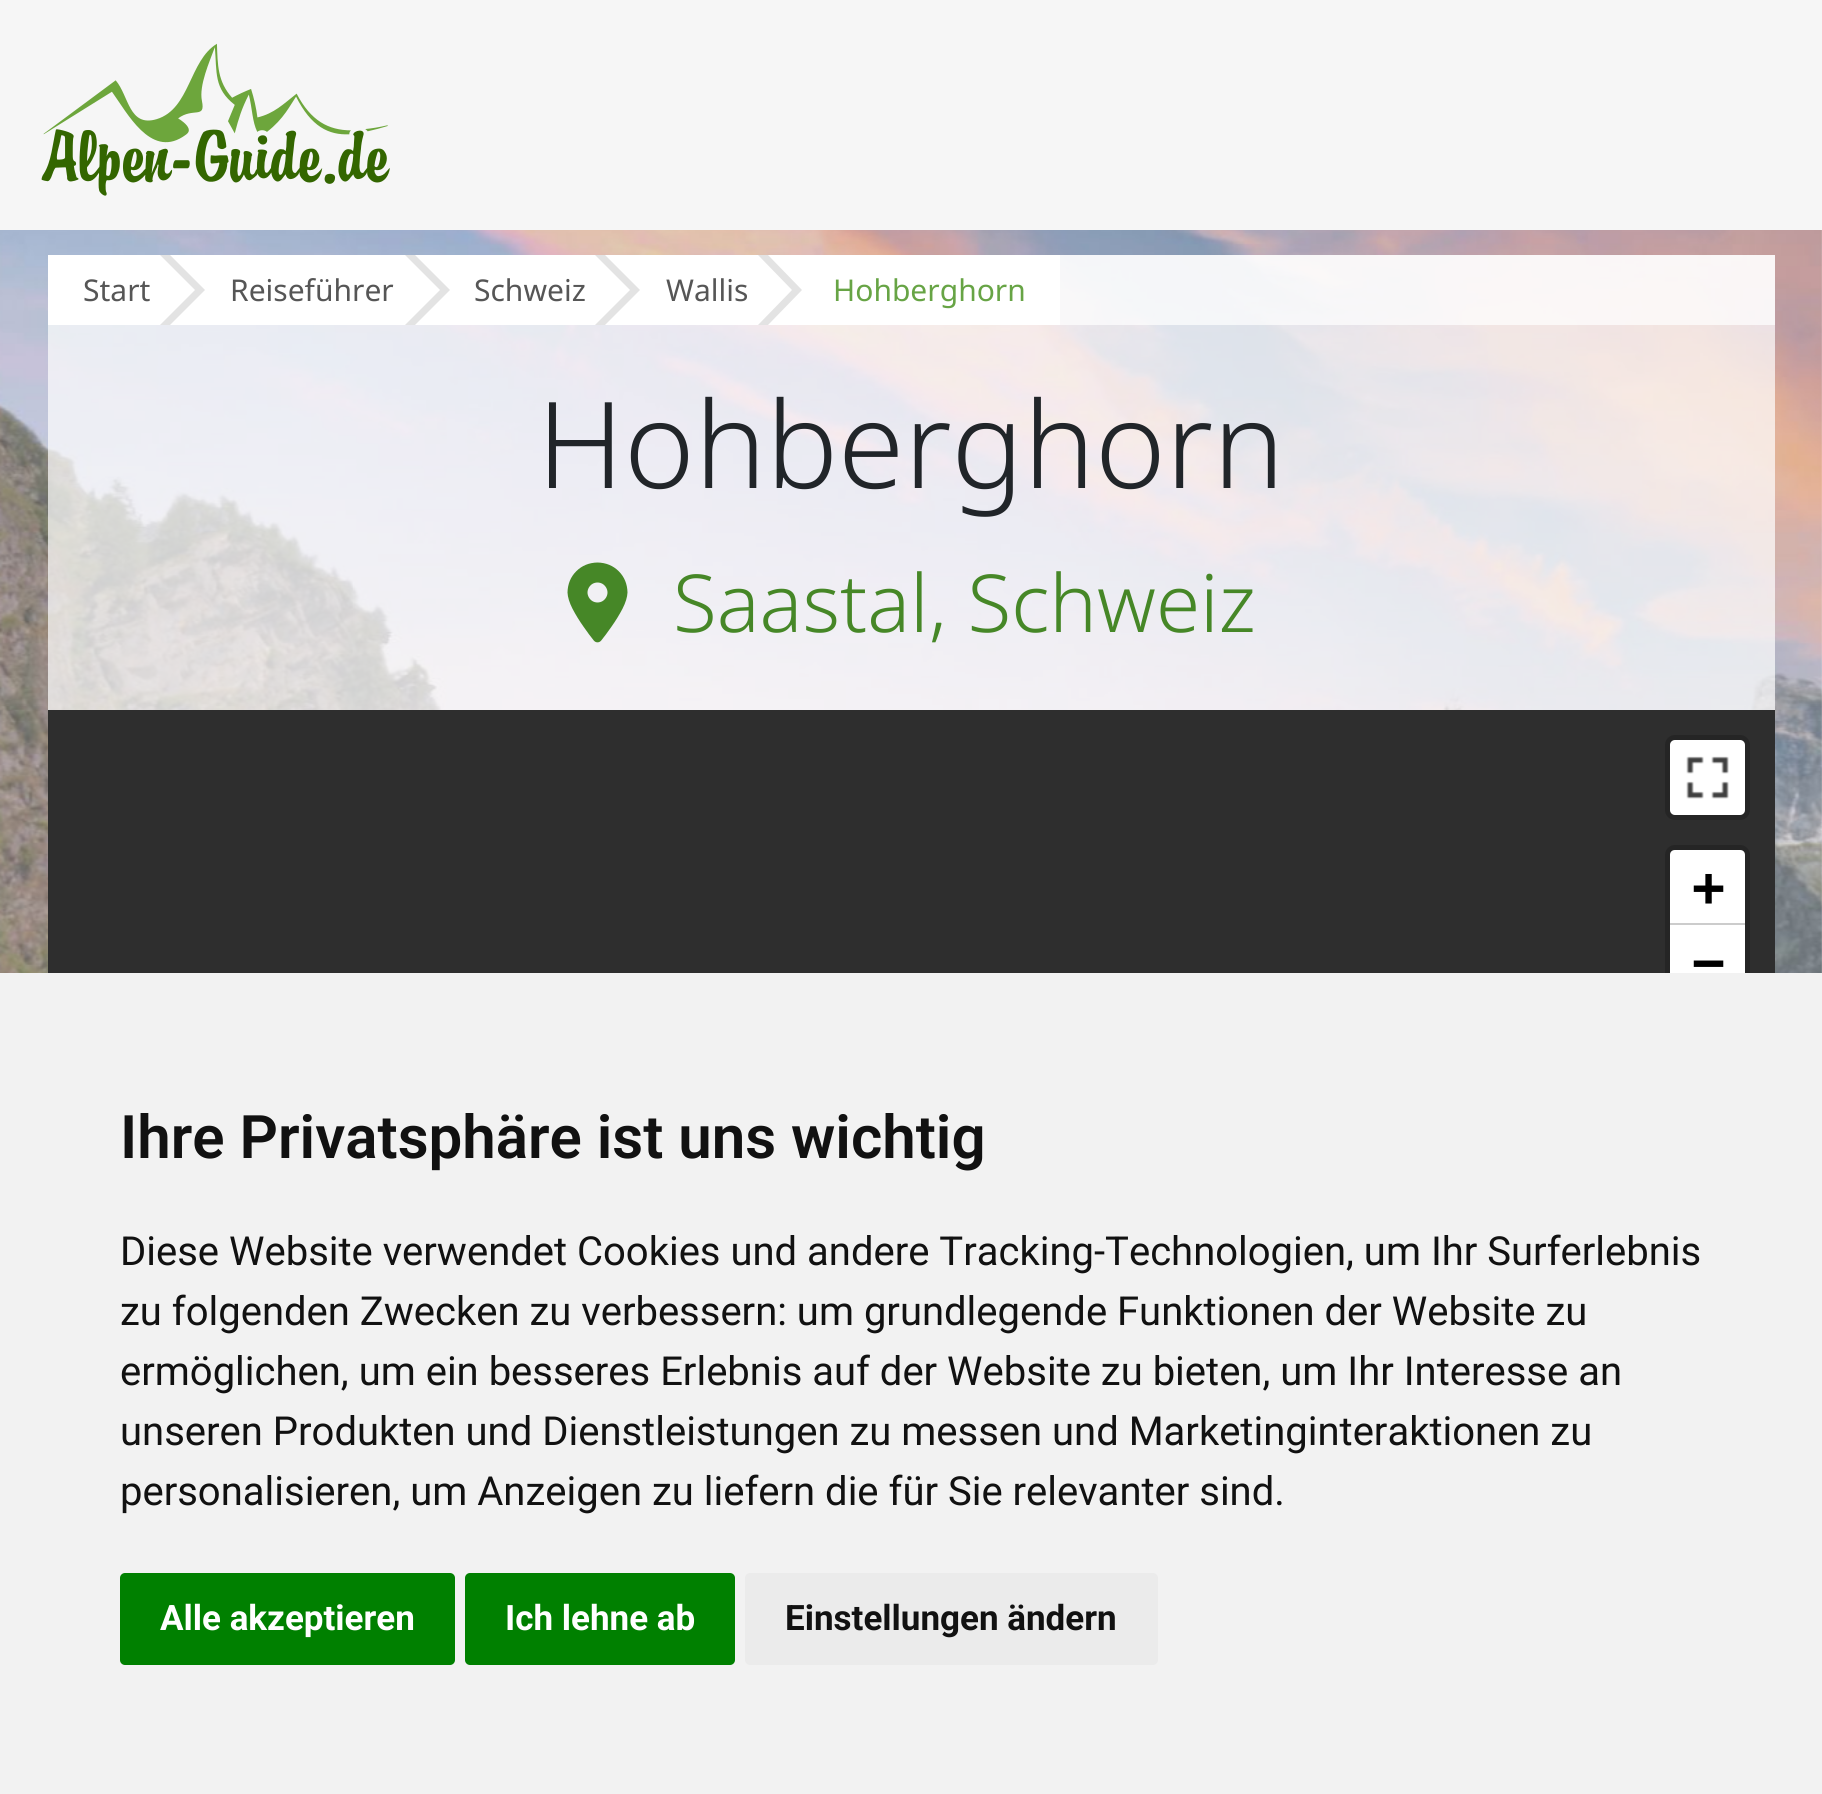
#include <cairo.h>
#include <math.h>
#include <stddef.h>


static void round_rect(cairo_t *cr, double x, double y, double w, double h, double r) {
    cairo_new_sub_path(cr);
    cairo_arc(cr, x + w - r, y + h - r, r, 0, M_PI / 2);
    cairo_arc(cr, x + r, y + h - r, r, M_PI / 2, M_PI);
    cairo_arc(cr, x + r, y + r, r, M_PI, 1.5 * M_PI);
    cairo_arc(cr, x + w - r, y + r, r, 1.5 * M_PI, 2 * M_PI);
    cairo_close_path(cr);
}

static void picture(cairo_t *cr, const char *path, double x, double y, double w, double h) {
    cairo_surface_t *image = cairo_image_surface_create_from_png(path);
    cairo_save(cr);
    cairo_set_source_surface(cr, image, x, y);
    cairo_rectangle(cr, x, y, w, h);
    cairo_fill(cr);
    cairo_restore(cr);
    cairo_surface_destroy(image);
}

int main(void) {
    cairo_surface_t *surface = cairo_image_surface_create(CAIRO_FORMAT_RGB24, 1822, 1794);
    cairo_t *cr = cairo_create(surface);
    cairo_font_options_t *options = cairo_font_options_create();
    cairo_font_options_set_hint_metrics(options, CAIRO_HINT_METRICS_OFF);
    cairo_font_options_set_hint_style(options, CAIRO_HINT_STYLE_NONE);
    cairo_set_font_options(cr, options);
    cairo_set_miter_limit(cr, 4);
    cairo_set_source_rgb(cr, 1, 1, 1);
    cairo_paint(cr);
    picture(cr, "img1.png", 0, 230, 1822, 743);
    cairo_set_source_rgb(cr, 0.961, 0.961, 0.961);
    cairo_rectangle(cr, 0, 0, 1822, 230);
    cairo_fill(cr);
    picture(cr, "img2.png", 41, 43, 349, 153);
    cairo_set_source_rgba(cr, 1, 1, 1, 0.7);
    cairo_rectangle(cr, 48, 255, 1727, 455);
    cairo_fill(cr);
    cairo_set_source_rgb(cr, 0.89, 0.89, 0.89);
    cairo_rectangle(cr, 160, 255, 608, 70);
    cairo_fill(cr);
    cairo_set_source_rgb(cr, 1, 1, 1);
    cairo_rectangle(cr, 48, 255, 112, 70);
    cairo_fill(cr);
    cairo_select_font_face(cr, "Noto Sans", CAIRO_FONT_SLANT_NORMAL, CAIRO_FONT_WEIGHT_NORMAL);
    cairo_set_font_size(cr, 30);
    cairo_set_source_rgb(cr, 0.337, 0.337, 0.337);
    cairo_move_to(cr, 83, 301);
    cairo_show_text(cr, "Start");
    cairo_set_source_rgb(cr, 1, 1, 1);
    cairo_rectangle(cr, 170, 255, 235, 70);
    cairo_fill(cr);
    cairo_set_source_rgb(cr, 0.89, 0.89, 0.89);
    cairo_new_path(cr);
    cairo_move_to(cr, 170, 325);
    cairo_line_to(cr, 170, 255);
    cairo_line_to(cr, 205, 290);
    cairo_close_path(cr);
    cairo_fill(cr);
    cairo_set_source_rgb(cr, 1, 1, 1);
    cairo_new_path(cr);
    cairo_move_to(cr, 160, 325);
    cairo_line_to(cr, 160, 255);
    cairo_line_to(cr, 195, 290);
    cairo_close_path(cr);
    cairo_fill(cr);
    cairo_set_source_rgb(cr, 0.337, 0.337, 0.337);
    cairo_move_to(cr, 230, 301);
    cairo_show_text(cr, "Reiseführer");
    cairo_set_source_rgb(cr, 1, 1, 1);
    cairo_rectangle(cr, 415, 255, 180, 70);
    cairo_fill(cr);
    cairo_set_source_rgb(cr, 0.89, 0.89, 0.89);
    cairo_new_path(cr);
    cairo_move_to(cr, 415, 325);
    cairo_line_to(cr, 415, 255);
    cairo_line_to(cr, 450, 290);
    cairo_close_path(cr);
    cairo_fill(cr);
    cairo_set_source_rgb(cr, 1, 1, 1);
    cairo_new_path(cr);
    cairo_move_to(cr, 405, 325);
    cairo_line_to(cr, 405, 255);
    cairo_line_to(cr, 440, 290);
    cairo_close_path(cr);
    cairo_fill(cr);
    cairo_set_source_rgb(cr, 0.337, 0.337, 0.337);
    cairo_move_to(cr, 474, 301);
    cairo_show_text(cr, "Schweiz");
    cairo_set_source_rgb(cr, 1, 1, 1);
    cairo_rectangle(cr, 605, 255, 153, 70);
    cairo_fill(cr);
    cairo_set_source_rgb(cr, 0.89, 0.89, 0.89);
    cairo_new_path(cr);
    cairo_move_to(cr, 605, 325);
    cairo_line_to(cr, 605, 255);
    cairo_line_to(cr, 640, 290);
    cairo_close_path(cr);
    cairo_fill(cr);
    cairo_set_source_rgb(cr, 1, 1, 1);
    cairo_new_path(cr);
    cairo_move_to(cr, 595, 325);
    cairo_line_to(cr, 595, 255);
    cairo_line_to(cr, 630, 290);
    cairo_close_path(cr);
    cairo_fill(cr);
    cairo_set_source_rgb(cr, 0.337, 0.337, 0.337);
    cairo_move_to(cr, 666, 301);
    cairo_show_text(cr, "Wallis");
    cairo_set_source_rgb(cr, 1, 1, 1);
    cairo_rectangle(cr, 768, 255, 292, 70);
    cairo_fill(cr);
    cairo_set_source_rgb(cr, 0.89, 0.89, 0.89);
    cairo_new_path(cr);
    cairo_move_to(cr, 768, 325);
    cairo_line_to(cr, 768, 255);
    cairo_line_to(cr, 802, 290);
    cairo_close_path(cr);
    cairo_fill(cr);
    cairo_set_source_rgb(cr, 1, 1, 1);
    cairo_new_path(cr);
    cairo_move_to(cr, 758, 325);
    cairo_line_to(cr, 758, 255);
    cairo_line_to(cr, 792, 290);
    cairo_close_path(cr);
    cairo_fill(cr);
    cairo_set_source_rgb(cr, 0.404, 0.643, 0.271);
    cairo_move_to(cr, 833, 301);
    cairo_show_text(cr, "Hohberghorn");
    cairo_set_source_rgba(cr, 1, 1, 1, 0.7);
    cairo_rectangle(cr, 1060, 255, 715, 70);
    cairo_fill(cr);
    cairo_select_font_face(cr, "Noto Sans Light", CAIRO_FONT_SLANT_NORMAL, CAIRO_FONT_WEIGHT_NORMAL);
    cairo_set_font_size(cr, 120);
    cairo_set_source_rgb(cr, 0.129, 0.145, 0.161);
    cairo_move_to(cr, 537, 488);
    cairo_show_text(cr, "Hohberghorn");
    picture(cr, "img3.png", 567, 562, 61, 81);
    cairo_set_font_size(cr, 80);
    cairo_set_source_rgb(cr, 0.275, 0.529, 0.153);
    cairo_move_to(cr, 673, 632);
    cairo_show_text(cr, "Saastal, Schweiz");
    cairo_set_source_rgb(cr, 0.18, 0.18, 0.18);
    cairo_rectangle(cr, 48, 710, 1727, 263);
    cairo_fill(cr);
    round_rect(cr, 1667.5, 737.5, 80, 80, 7.5);
    cairo_set_source_rgb(cr, 0.145, 0.145, 0.145);
    cairo_set_line_width(cr, 5);
    cairo_stroke(cr);
    cairo_set_source_rgb(cr, 1, 1, 1);
    round_rect(cr, 1670, 740, 75, 75, 5);
    cairo_fill(cr);
    picture(cr, "img4.png", 1686, 756, 43, 43);
    round_rect(cr, 1667.5, 847.5, 80, 155, 7.5);
    cairo_set_source_rgb(cr, 0.145, 0.145, 0.145);
    cairo_stroke(cr);
    cairo_set_source_rgb(cr, 1, 1, 1);
    cairo_new_path(cr);
    cairo_move_to(cr, 1675, 850);
    cairo_line_to(cr, 1740, 850);
    cairo_curve_to(cr, 1743, 850, 1745, 852, 1745, 855);
    cairo_line_to(cr, 1745, 925);
    cairo_line_to(cr, 1670, 925);
    cairo_line_to(cr, 1670, 855);
    cairo_curve_to(cr, 1670, 852, 1672, 850, 1675, 850);
    cairo_close_path(cr);
    cairo_fill(cr);
    cairo_set_source_rgb(cr, 0.8, 0.8, 0.8);
    cairo_rectangle(cr, 1670, 923, 75, 2);
    cairo_fill(cr);
    cairo_select_font_face(cr, "DejaVu Sans Mono", CAIRO_FONT_SLANT_NORMAL, CAIRO_FONT_WEIGHT_BOLD);
    cairo_set_font_size(cr, 55);
    cairo_set_source_rgb(cr, 0, 0, 0);
    cairo_move_to(cr, 1692, 906);
    cairo_show_text(cr, "+");
    cairo_set_source_rgb(cr, 1, 1, 1);
    cairo_rectangle(cr, 1670, 925, 75, 48);
    cairo_fill(cr);
    cairo_set_source_rgb(cr, 0, 0, 0);
    cairo_move_to(cr, 1692, 981);
    cairo_show_text(cr, "−");
    cairo_set_source_rgb(cr, 0.949, 0.949, 0.949);
    cairo_rectangle(cr, 0, 973, 1822, 821);
    cairo_fill(cr);
    cairo_select_font_face(cr, "Roboto SemiBold", CAIRO_FONT_SLANT_NORMAL, CAIRO_FONT_WEIGHT_NORMAL);
    cairo_set_font_size(cr, 60);
    cairo_set_source_rgb(cr, 0.067, 0.067, 0.067);
    cairo_move_to(cr, 120, 1158);
    cairo_show_text(cr, "Ihre Privatsphäre ist uns wichtig");
    cairo_select_font_face(cr, "Roboto", CAIRO_FONT_SLANT_NORMAL, CAIRO_FONT_WEIGHT_NORMAL);
    cairo_set_font_size(cr, 40);
    cairo_move_to(cr, 120, 1265);
    cairo_show_text(cr, "Diese Website verwendet Cookies und andere Tracking-Technologien, um Ihr Surferlebnis");
    cairo_move_to(cr, 120, 1325);
    cairo_show_text(cr, "zu folgenden Zwecken zu verbessern: um grundlegende Funktionen der Website zu");
    cairo_move_to(cr, 120, 1385);
    cairo_show_text(cr, "ermöglichen, um ein besseres Erlebnis auf der Website zu bieten, um Ihr Interesse an");
    cairo_move_to(cr, 120, 1445);
    cairo_show_text(cr, "unseren Produkten und Dienstleistungen zu messen und Marketinginteraktionen zu");
    cairo_move_to(cr, 120, 1505);
    cairo_show_text(cr, "personalisieren, um Anzeigen zu liefern die für Sie relevanter sind.");
    cairo_set_source_rgb(cr, 0, 0.502, 0);
    round_rect(cr, 120, 1573, 335, 92, 5);
    cairo_fill(cr);
    cairo_select_font_face(cr, "Roboto", CAIRO_FONT_SLANT_NORMAL, CAIRO_FONT_WEIGHT_BOLD);
    cairo_set_font_size(cr, 35);
    cairo_set_source_rgb(cr, 1, 1, 1);
    cairo_move_to(cr, 160, 1630);
    cairo_show_text(cr, "Alle akzeptieren");
    cairo_set_source_rgb(cr, 0, 0.502, 0);
    round_rect(cr, 465, 1573, 270, 92, 5);
    cairo_fill(cr);
    cairo_set_source_rgb(cr, 1, 1, 1);
    cairo_move_to(cr, 505, 1630);
    cairo_show_text(cr, "Ich lehne ab");
    cairo_set_source_rgb(cr, 0.918, 0.918, 0.918);
    round_rect(cr, 745, 1573, 413, 92, 5);
    cairo_fill(cr);
    cairo_set_source_rgb(cr, 0.067, 0.067, 0.067);
    cairo_move_to(cr, 785, 1630);
    cairo_show_text(cr, "Einstellungen ändern");
    cairo_surface_write_to_png(surface, "page.png");
    cairo_font_options_destroy(options);
    cairo_destroy(cr);
    cairo_surface_destroy(surface);
    return 0;
}
